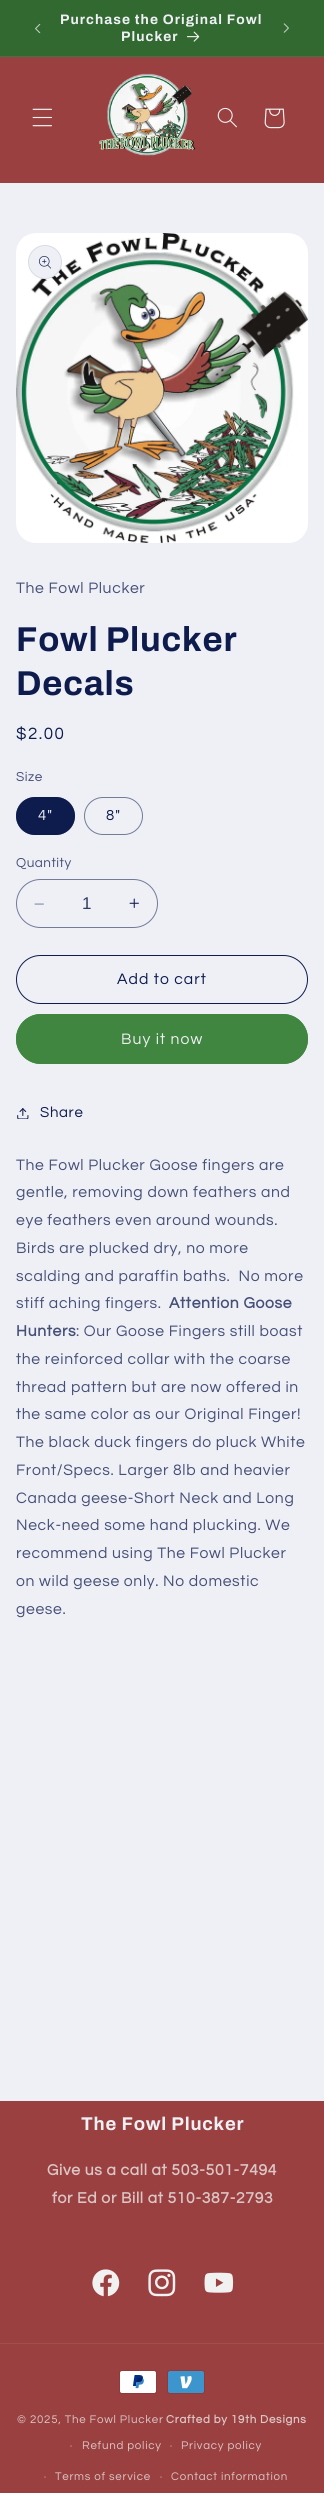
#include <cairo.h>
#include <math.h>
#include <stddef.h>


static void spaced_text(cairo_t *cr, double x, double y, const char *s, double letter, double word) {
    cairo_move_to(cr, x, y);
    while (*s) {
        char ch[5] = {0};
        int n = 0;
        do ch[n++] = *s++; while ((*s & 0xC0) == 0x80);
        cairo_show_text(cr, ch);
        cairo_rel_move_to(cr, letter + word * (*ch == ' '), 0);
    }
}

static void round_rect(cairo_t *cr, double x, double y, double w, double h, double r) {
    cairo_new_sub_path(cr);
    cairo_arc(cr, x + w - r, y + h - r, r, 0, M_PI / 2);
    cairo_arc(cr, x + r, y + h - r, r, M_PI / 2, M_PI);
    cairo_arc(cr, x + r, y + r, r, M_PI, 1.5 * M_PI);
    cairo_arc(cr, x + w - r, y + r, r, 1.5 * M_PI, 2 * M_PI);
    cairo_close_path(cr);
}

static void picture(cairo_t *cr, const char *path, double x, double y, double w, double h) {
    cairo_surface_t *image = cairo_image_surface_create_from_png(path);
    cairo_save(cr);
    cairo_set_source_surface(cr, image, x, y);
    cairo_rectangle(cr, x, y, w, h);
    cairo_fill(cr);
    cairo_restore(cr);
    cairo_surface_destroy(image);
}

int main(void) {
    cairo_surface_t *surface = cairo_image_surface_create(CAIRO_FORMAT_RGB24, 324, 2493);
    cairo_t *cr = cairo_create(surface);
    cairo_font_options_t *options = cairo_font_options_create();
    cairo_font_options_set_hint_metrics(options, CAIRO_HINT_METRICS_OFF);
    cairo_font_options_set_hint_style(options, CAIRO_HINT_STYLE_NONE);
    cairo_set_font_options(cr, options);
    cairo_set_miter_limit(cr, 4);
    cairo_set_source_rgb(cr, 0.937, 0.941, 0.961);
    cairo_paint(cr);
    cairo_set_source_rgb(cr, 0.196, 0.412, 0.192);
    cairo_rectangle(cr, 0, 0, 324, 56);
    cairo_fill(cr);
    cairo_set_source_rgb(cr, 0.255, 0.455, 0.251);
    cairo_rectangle(cr, 0, 56, 324, 1);
    cairo_fill(cr);
    picture(cr, "img1.png", 35, 23, 6, 11);
    cairo_select_font_face(cr, "Archivo", CAIRO_FONT_SLANT_NORMAL, CAIRO_FONT_WEIGHT_BOLD);
    cairo_set_font_size(cr, 13.75);
    cairo_set_source_rgb(cr, 0.937, 0.941, 0.961);
    spaced_text(cr, 60, 24, "Purchase the Original Fowl", 1.05, 0);
    spaced_text(cr, 121, 41, "Plucker", 1.05, 0);
    picture(cr, "img2.png", 187, 31, 13, 11);
    picture(cr, "img3.png", 283, 23, 6, 10);
    cairo_set_source_rgb(cr, 0.604, 0.251, 0.251);
    cairo_rectangle(cr, 0, 57, 324, 126);
    cairo_fill(cr);
    picture(cr, "img4.png", 32, 108, 20, 19);
    picture(cr, "img5.png", 99, 73, 97, 83);
    picture(cr, "img6.png", 217, 107, 20, 21);
    picture(cr, "img7.png", 264, 108, 21, 21);
    picture(cr, "img8.png", 16, 233, 292, 310);
    cairo_set_source_rgb(cr, 0.937, 0.941, 0.961);
    cairo_arc(cr, 45, 262, 17, 0, 2 * M_PI);
    cairo_fill(cr);
    cairo_arc(cr, 45, 262, 16.5, 0, 2 * M_PI);
    cairo_set_source_rgba(cr, 0.055, 0.106, 0.302, 0.1);
    cairo_set_line_width(cr, 1);
    cairo_stroke(cr);
    picture(cr, "img9.png", 39, 256, 12, 13);
    cairo_select_font_face(cr, "Questrial", CAIRO_FONT_SLANT_NORMAL, CAIRO_FONT_WEIGHT_NORMAL);
    cairo_set_font_size(cr, 15.75);
    cairo_set_source_rgb(cr, 0.275, 0.314, 0.467);
    spaced_text(cr, 16, 593, "The Fowl Plucker", 0.65, 0);
    cairo_select_font_face(cr, "Archivo", CAIRO_FONT_SLANT_NORMAL, CAIRO_FONT_WEIGHT_BOLD);
    cairo_set_font_size(cr, 34.5);
    cairo_set_source_rgb(cr, 0.055, 0.106, 0.302);
    spaced_text(cr, 16, 651, "Fowl Plucker", 0.75, 0);
    spaced_text(cr, 16, 695, "Decals", 0.75, 0);
    cairo_select_font_face(cr, "Questrial", CAIRO_FONT_SLANT_NORMAL, CAIRO_FONT_WEIGHT_NORMAL);
    cairo_set_font_size(cr, 17);
    spaced_text(cr, 16, 739, "$2.00", 1.5, 0);
    cairo_set_font_size(cr, 13.5);
    cairo_set_source_rgb(cr, 0.275, 0.314, 0.467);
    spaced_text(cr, 16, 781, "Size", 0.5, 0);
    cairo_set_source_rgb(cr, 0.055, 0.106, 0.302);
    round_rect(cr, 16, 797, 59, 38, 19);
    cairo_fill(cr);
    round_rect(cr, 16.5, 797.5, 58, 37, 18.5);
    cairo_set_source_rgba(cr, 0.055, 0.106, 0.302, 0.55);
    cairo_stroke(cr);
    cairo_set_font_size(cr, 15);
    cairo_set_source_rgb(cr, 0.937, 0.941, 0.961);
    spaced_text(cr, 38, 820, "4\"", 1.05, 0);
    round_rect(cr, 84.5, 797.5, 58, 37, 18.5);
    cairo_set_source_rgb(cr, 0.451, 0.482, 0.6);
    cairo_stroke(cr);
    cairo_set_source_rgb(cr, 0.055, 0.106, 0.302);
    spaced_text(cr, 106, 820, "8\"", 1.05, 0);
    cairo_set_font_size(cr, 13.5);
    cairo_set_source_rgb(cr, 0.275, 0.314, 0.467);
    spaced_text(cr, 16, 867, "Quantity", 0.5, 0);
    picture(cr, "img10.png", 34, 903, 10, 2);
    picture(cr, "img11.png", 129, 898, 10, 10);
    round_rect(cr, 16.5, 879.5, 141, 48, 24);
    cairo_set_source_rgb(cr, 0.451, 0.482, 0.6);
    cairo_stroke(cr);
    cairo_select_font_face(cr, "Liberation Sans", CAIRO_FONT_SLANT_NORMAL, CAIRO_FONT_WEIGHT_NORMAL);
    cairo_set_font_size(cr, 17);
    cairo_set_source_rgb(cr, 0.188, 0.231, 0.4);
    cairo_move_to(cr, 82, 909);
    cairo_show_text(cr, "1");
    round_rect(cr, 16.5, 955.5, 291, 48, 24);
    cairo_set_source_rgb(cr, 0.055, 0.106, 0.302);
    cairo_stroke(cr);
    cairo_select_font_face(cr, "Questrial", CAIRO_FONT_SLANT_NORMAL, CAIRO_FONT_WEIGHT_NORMAL);
    cairo_set_font_size(cr, 15.75);
    spaced_text(cr, 117, 984, "Add to cart", 1.05, 0);
    cairo_set_source_rgb(cr, 0.255, 0.525, 0.251);
    round_rect(cr, 16, 1014, 292, 50, 25);
    cairo_fill(cr);
    round_rect(cr, 16.5, 1014.5, 291, 49, 24.5);
    cairo_stroke(cr);
    cairo_set_source_rgb(cr, 0.937, 0.941, 0.961);
    spaced_text(cr, 121, 1044, "Buy it now", 1.05, 0);
    picture(cr, "img12.png", 17, 1108, 12, 11);
    cairo_set_font_size(cr, 15);
    cairo_set_source_rgb(cr, 0.055, 0.106, 0.302);
    spaced_text(cr, 40, 1117, "Share", 0.65, 0);
    cairo_set_font_size(cr, 15.75);
    cairo_set_source_rgb(cr, 0.275, 0.314, 0.467);
    spaced_text(cr, 16, 1170, "The Fowl Plucker Goose fingers are", 0.65, 0);
    spaced_text(cr, 16, 1197, "gentle, removing down feathers and", 0.65, 0);
    spaced_text(cr, 16, 1225, "eye feathers even around wounds.", 0.65, 0);
    spaced_text(cr, 16, 1253, "Birds are plucked dry, no more", 0.65, 0);
    spaced_text(cr, 16, 1281, "scalding and paraffin baths.  No more", 0.65, 0);
    spaced_text(cr, 16, 1308, "stiff aching fingers.", 0.65, 0);
    cairo_select_font_face(cr, "Questrial", CAIRO_FONT_SLANT_NORMAL, CAIRO_FONT_WEIGHT_BOLD);
    spaced_text(cr, 169, 1308, "Attention Goose", 0.65, 0);
    spaced_text(cr, 16, 1336, "Hunters", 0.65, 0);
    cairo_select_font_face(cr, "Questrial", CAIRO_FONT_SLANT_NORMAL, CAIRO_FONT_WEIGHT_NORMAL);
    spaced_text(cr, 76, 1336, ": Our Goose Fingers still boast", 0.65, 0);
    spaced_text(cr, 16, 1364, "the reinforced collar with the coarse", 0.65, 0);
    spaced_text(cr, 16, 1392, "thread pattern but are now offered in", 0.65, 0);
    spaced_text(cr, 16, 1419, "the same color as our Original Finger!", 0.65, 0);
    spaced_text(cr, 16, 1447, "The black duck fingers do pluck White", 0.65, 0);
    spaced_text(cr, 16, 1475, "Front/Specs. Larger 8lb and heavier", 0.65, 0);
    spaced_text(cr, 16, 1503, "Canada geese-Short Neck and Long", 0.65, 0);
    spaced_text(cr, 16, 1530, "Neck-need some hand plucking. We", 0.65, 0);
    spaced_text(cr, 16, 1558, "recommend using The Fowl Plucker", 0.65, 0);
    spaced_text(cr, 16, 1586, "on wild geese only. No domestic", 0.65, 0);
    spaced_text(cr, 16, 1614, "geese.", 0.65, 0);
    cairo_set_source_rgb(cr, 0.604, 0.251, 0.251);
    cairo_rectangle(cr, 0, 2101, 324, 392);
    cairo_fill(cr);
    cairo_select_font_face(cr, "Archivo", CAIRO_FONT_SLANT_NORMAL, CAIRO_FONT_WEIGHT_BOLD);
    cairo_set_font_size(cr, 18.5);
    cairo_set_source_rgb(cr, 0.937, 0.941, 0.961);
    spaced_text(cr, 81, 2130, "The Fowl Plucker", 0.75, 0);
    cairo_select_font_face(cr, "Questrial", CAIRO_FONT_SLANT_NORMAL, CAIRO_FONT_WEIGHT_BOLD);
    cairo_set_font_size(cr, 15.75);
    cairo_set_source_rgb(cr, 0.859, 0.773, 0.773);
    spaced_text(cr, 47, 2175, "Give us a call at 503-501-7494", 0.65, 0);
    spaced_text(cr, 52, 2203, "for Ed or Bill at 510-387-2793", 0.65, 0);
    picture(cr, "img13.png", 92, 2269, 28, 28);
    picture(cr, "img14.png", 148, 2269, 28, 28);
    picture(cr, "img15.png", 204, 2272, 30, 21);
    cairo_set_source_rgb(cr, 0.631, 0.306, 0.306);
    cairo_rectangle(cr, 0, 2343, 324, 1);
    cairo_fill(cr);
    picture(cr, "img16.png", 119, 2370, 38, 24);
    picture(cr, "img17.png", 167, 2370, 38, 24);
    cairo_select_font_face(cr, "Questrial", CAIRO_FONT_SLANT_NORMAL, CAIRO_FONT_WEIGHT_NORMAL);
    cairo_set_font_size(cr, 11.5);
    cairo_set_source_rgb(cr, 0.859, 0.773, 0.773);
    spaced_text(cr, 17, 2423, "© 2025, The Fowl Plucker", 0.75, 0);
    cairo_select_font_face(cr, "Questrial", CAIRO_FONT_SLANT_NORMAL, CAIRO_FONT_WEIGHT_BOLD);
    spaced_text(cr, 166, 2423, "Crafted by 19th Designs", 0.75, 0);
    cairo_select_font_face(cr, "Questrial", CAIRO_FONT_SLANT_NORMAL, CAIRO_FONT_WEIGHT_NORMAL);
    cairo_set_font_size(cr, 10);
    spaced_text(cr, 70, 2449, "·", 0.75, 0);
    cairo_set_font_size(cr, 11.5);
    spaced_text(cr, 82, 2449, "Refund policy", 0.75, 0);
    cairo_set_font_size(cr, 10);
    spaced_text(cr, 170, 2449, "·", 0.75, 0);
    cairo_set_font_size(cr, 11.5);
    spaced_text(cr, 181, 2449, "Privacy policy", 0.75, 0);
    cairo_set_font_size(cr, 10);
    spaced_text(cr, 44, 2480, "·", 0.75, 0);
    cairo_set_font_size(cr, 11.5);
    spaced_text(cr, 55, 2480, "Terms of service", 0.75, 0);
    cairo_set_font_size(cr, 10);
    spaced_text(cr, 160, 2480, "·", 0.75, 0);
    cairo_set_font_size(cr, 11.5);
    spaced_text(cr, 171, 2480, "Contact information", 0.75, 0);
    cairo_surface_write_to_png(surface, "page.png");
    cairo_font_options_destroy(options);
    cairo_destroy(cr);
    cairo_surface_destroy(surface);
    return 0;
}
